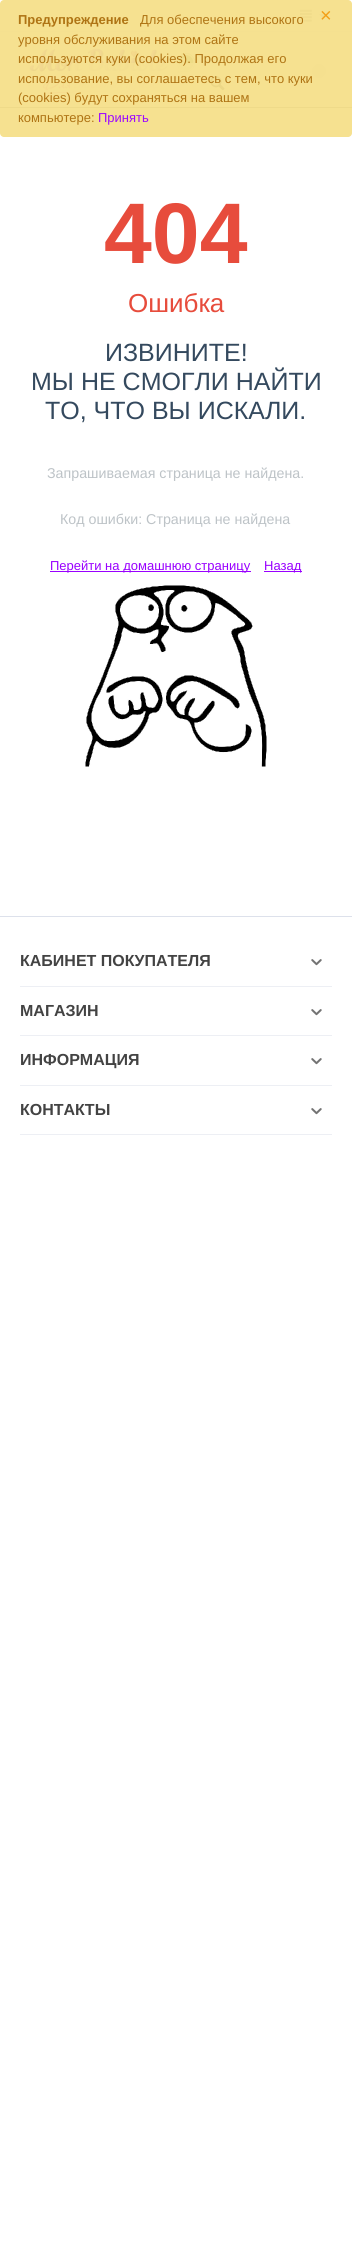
#include <cairo.h>
#include <math.h>
#include <stddef.h>


static void round_rect(cairo_t *cr, double x, double y, double w, double h, double r) {
    cairo_new_sub_path(cr);
    cairo_arc(cr, x + w - r, y + h - r, r, 0, M_PI / 2);
    cairo_arc(cr, x + r, y + h - r, r, M_PI / 2, M_PI);
    cairo_arc(cr, x + r, y + r, r, M_PI, 1.5 * M_PI);
    cairo_arc(cr, x + w - r, y + r, r, 1.5 * M_PI, 2 * M_PI);
    cairo_close_path(cr);
}

static void picture(cairo_t *cr, const char *path, double x, double y, double w, double h) {
    cairo_surface_t *image = cairo_image_surface_create_from_png(path);
    cairo_save(cr);
    cairo_set_source_surface(cr, image, x, y);
    cairo_rectangle(cr, x, y, w, h);
    cairo_fill(cr);
    cairo_restore(cr);
    cairo_surface_destroy(image);
}

int main(void) {
    cairo_surface_t *surface = cairo_image_surface_create(CAIRO_FORMAT_RGB24, 352, 2258);
    cairo_t *cr = cairo_create(surface);
    cairo_font_options_t *options = cairo_font_options_create();
    cairo_font_options_set_hint_metrics(options, CAIRO_HINT_METRICS_OFF);
    cairo_font_options_set_hint_style(options, CAIRO_HINT_STYLE_NONE);
    cairo_set_font_options(cr, options);
    cairo_set_miter_limit(cr, 4);
    cairo_set_source_rgb(cr, 1, 1, 1);
    cairo_paint(cr);
    cairo_set_source_rgb(cr, 0.929, 0.937, 0.957);
    cairo_rectangle(cr, 0, 31, 352, 1);
    cairo_fill(cr);
    picture(cr, "img1.png", 300, 9, 12, 13);
    cairo_set_source_rgb(cr, 0.451, 0.451, 0.451);
    cairo_new_path(cr);
    cairo_move_to(cr, 323, 18);
    cairo_line_to(cr, 319, 14.5);
    cairo_line_to(cr, 326.5, 14.5);
    cairo_close_path(cr);
    cairo_fill(cr);
    picture(cr, "img2.png", 29, 48, 139, 47);
    picture(cr, "img3.png", 176, 53, 20, 21);
    cairo_set_source_rgba(cr, 1, 1, 1, 0.75);
    round_rect(cr, 70, 63, 167, 40, 4);
    cairo_fill(cr);
    picture(cr, "img4.png", 210, 76, 15, 15);
    picture(cr, "img5.png", 253, 75, 28, 12);
    picture(cr, "img6.png", 307, 74, 23, 11);
    cairo_set_source_rgb(cr, 0.867, 0.882, 0.918);
    cairo_arc(cr, 319, 71, 7, 0, 2 * M_PI);
    cairo_fill(cr);
    cairo_set_source_rgb(cr, 0.31, 0.31, 0.31);
    cairo_rectangle(cr, 0, 107, 352, 1);
    cairo_fill(cr);
    cairo_set_source_rgba(cr, 0.961, 0.878, 0.549, 0.96);
    round_rect(cr, 0, 0, 352, 137, 4);
    cairo_fill(cr);
    cairo_select_font_face(cr, "Liberation Sans", CAIRO_FONT_SLANT_NORMAL, CAIRO_FONT_WEIGHT_BOLD);
    cairo_set_font_size(cr, 13);
    cairo_set_source_rgb(cr, 0.686, 0.455, 0.082);
    cairo_move_to(cr, 18, 24);
    cairo_show_text(cr, "Предупреждение");
    cairo_select_font_face(cr, "Liberation Sans", CAIRO_FONT_SLANT_NORMAL, CAIRO_FONT_WEIGHT_NORMAL);
    cairo_move_to(cr, 140, 24);
    cairo_show_text(cr, "Для обеспечения высокого");
    cairo_set_font_size(cr, 20);
    cairo_set_source_rgb(cr, 0.953, 0.624, 0.09);
    cairo_move_to(cr, 320, 22);
    cairo_show_text(cr, "×");
    cairo_set_font_size(cr, 13);
    cairo_set_source_rgb(cr, 0.686, 0.455, 0.082);
    cairo_move_to(cr, 18, 44);
    cairo_show_text(cr, "уровня обслуживания на этом сайте");
    cairo_move_to(cr, 18, 63);
    cairo_show_text(cr, "используются куки (cookies). Продолжая его");
    cairo_move_to(cr, 18, 83);
    cairo_show_text(cr, "использование, вы соглашаетесь с тем, что куки");
    cairo_move_to(cr, 18, 102);
    cairo_show_text(cr, "(cookies) будут сохраняться на вашем");
    cairo_move_to(cr, 18, 122);
    cairo_show_text(cr, "компьютере:");
    cairo_set_source_rgb(cr, 0.616, 0.039, 1);
    cairo_move_to(cr, 98, 122);
    cairo_show_text(cr, "Принять");
    cairo_select_font_face(cr, "Liberation Sans", CAIRO_FONT_SLANT_NORMAL, CAIRO_FONT_WEIGHT_BOLD);
    cairo_set_font_size(cr, 86);
    cairo_set_source_rgb(cr, 0.906, 0.298, 0.235);
    cairo_move_to(cr, 104, 263);
    cairo_show_text(cr, "404");
    cairo_select_font_face(cr, "Liberation Sans", CAIRO_FONT_SLANT_NORMAL, CAIRO_FONT_WEIGHT_NORMAL);
    cairo_set_font_size(cr, 26);
    cairo_move_to(cr, 128, 312);
    cairo_show_text(cr, "Ошибка");
    cairo_set_font_size(cr, 25);
    cairo_set_source_rgb(cr, 0.204, 0.286, 0.369);
    cairo_move_to(cr, 105, 361);
    cairo_show_text(cr, "ИЗВИНИТЕ!");
    cairo_move_to(cr, 31, 390);
    cairo_show_text(cr, "МЫ НЕ СМОГЛИ НАЙТИ");
    cairo_move_to(cr, 45, 419);
    cairo_show_text(cr, "ТО, ЧТО ВЫ ИСКАЛИ.");
    cairo_set_font_size(cr, 14.25);
    cairo_set_source_rgb(cr, 0.741, 0.765, 0.78);
    cairo_move_to(cr, 47, 478);
    cairo_show_text(cr, "Запрашиваемая страница не найдена.");
    cairo_move_to(cr, 60, 524);
    cairo_show_text(cr, "Код ошибки: Страница не найдена");
    cairo_set_source_rgb(cr, 0.6, 0, 1);
    cairo_rectangle(cr, 50, 571, 201, 1);
    cairo_fill(cr);
    cairo_set_font_size(cr, 13);
    cairo_move_to(cr, 50, 570);
    cairo_show_text(cr, "Перейти на домашнюю страницу");
    cairo_rectangle(cr, 264, 571, 38, 1);
    cairo_fill(cr);
    cairo_move_to(cr, 264, 570);
    cairo_show_text(cr, "Назад");
    picture(cr, "img7.png", 85, 585, 182, 182);
    cairo_set_source_rgb(cr, 0.867, 0.882, 0.918);
    cairo_rectangle(cr, 0, 916, 352, 1);
    cairo_fill(cr);
    cairo_set_source_rgb(cr, 0.929, 0.937, 0.957);
    cairo_rectangle(cr, 20, 986, 312, 1);
    cairo_fill(cr);
    cairo_select_font_face(cr, "Liberation Sans", CAIRO_FONT_SLANT_NORMAL, CAIRO_FONT_WEIGHT_BOLD);
    cairo_set_font_size(cr, 16);
    cairo_set_source_rgb(cr, 0.263, 0.263, 0.263);
    cairo_move_to(cr, 20, 966);
    cairo_show_text(cr, "КАБИНЕТ ПОКУПАТЕЛЯ");
    picture(cr, "img8.png", 311, 959, 11, 7);
    cairo_set_source_rgb(cr, 0.929, 0.937, 0.957);
    cairo_rectangle(cr, 20, 1035, 312, 1);
    cairo_fill(cr);
    cairo_set_source_rgb(cr, 0.263, 0.263, 0.263);
    cairo_move_to(cr, 20, 1016);
    cairo_show_text(cr, "МАГАЗИН");
    picture(cr, "img8.png", 311, 1009, 11, 7);
    cairo_set_source_rgb(cr, 0.929, 0.937, 0.957);
    cairo_rectangle(cr, 20, 1085, 312, 1);
    cairo_fill(cr);
    cairo_set_source_rgb(cr, 0.263, 0.263, 0.263);
    cairo_move_to(cr, 20, 1065);
    cairo_show_text(cr, "ИНФОРМАЦИЯ");
    picture(cr, "img8.png", 311, 1058, 11, 7);
    cairo_set_source_rgb(cr, 0.929, 0.937, 0.957);
    cairo_rectangle(cr, 20, 1134, 312, 1);
    cairo_fill(cr);
    cairo_set_source_rgb(cr, 0.263, 0.263, 0.263);
    cairo_move_to(cr, 20, 1115);
    cairo_show_text(cr, "КОНТАКТЫ");
    picture(cr, "img8.png", 311, 1108, 11, 7);
    cairo_surface_write_to_png(surface, "page.png");
    cairo_font_options_destroy(options);
    cairo_destroy(cr);
    cairo_surface_destroy(surface);
    return 0;
}
